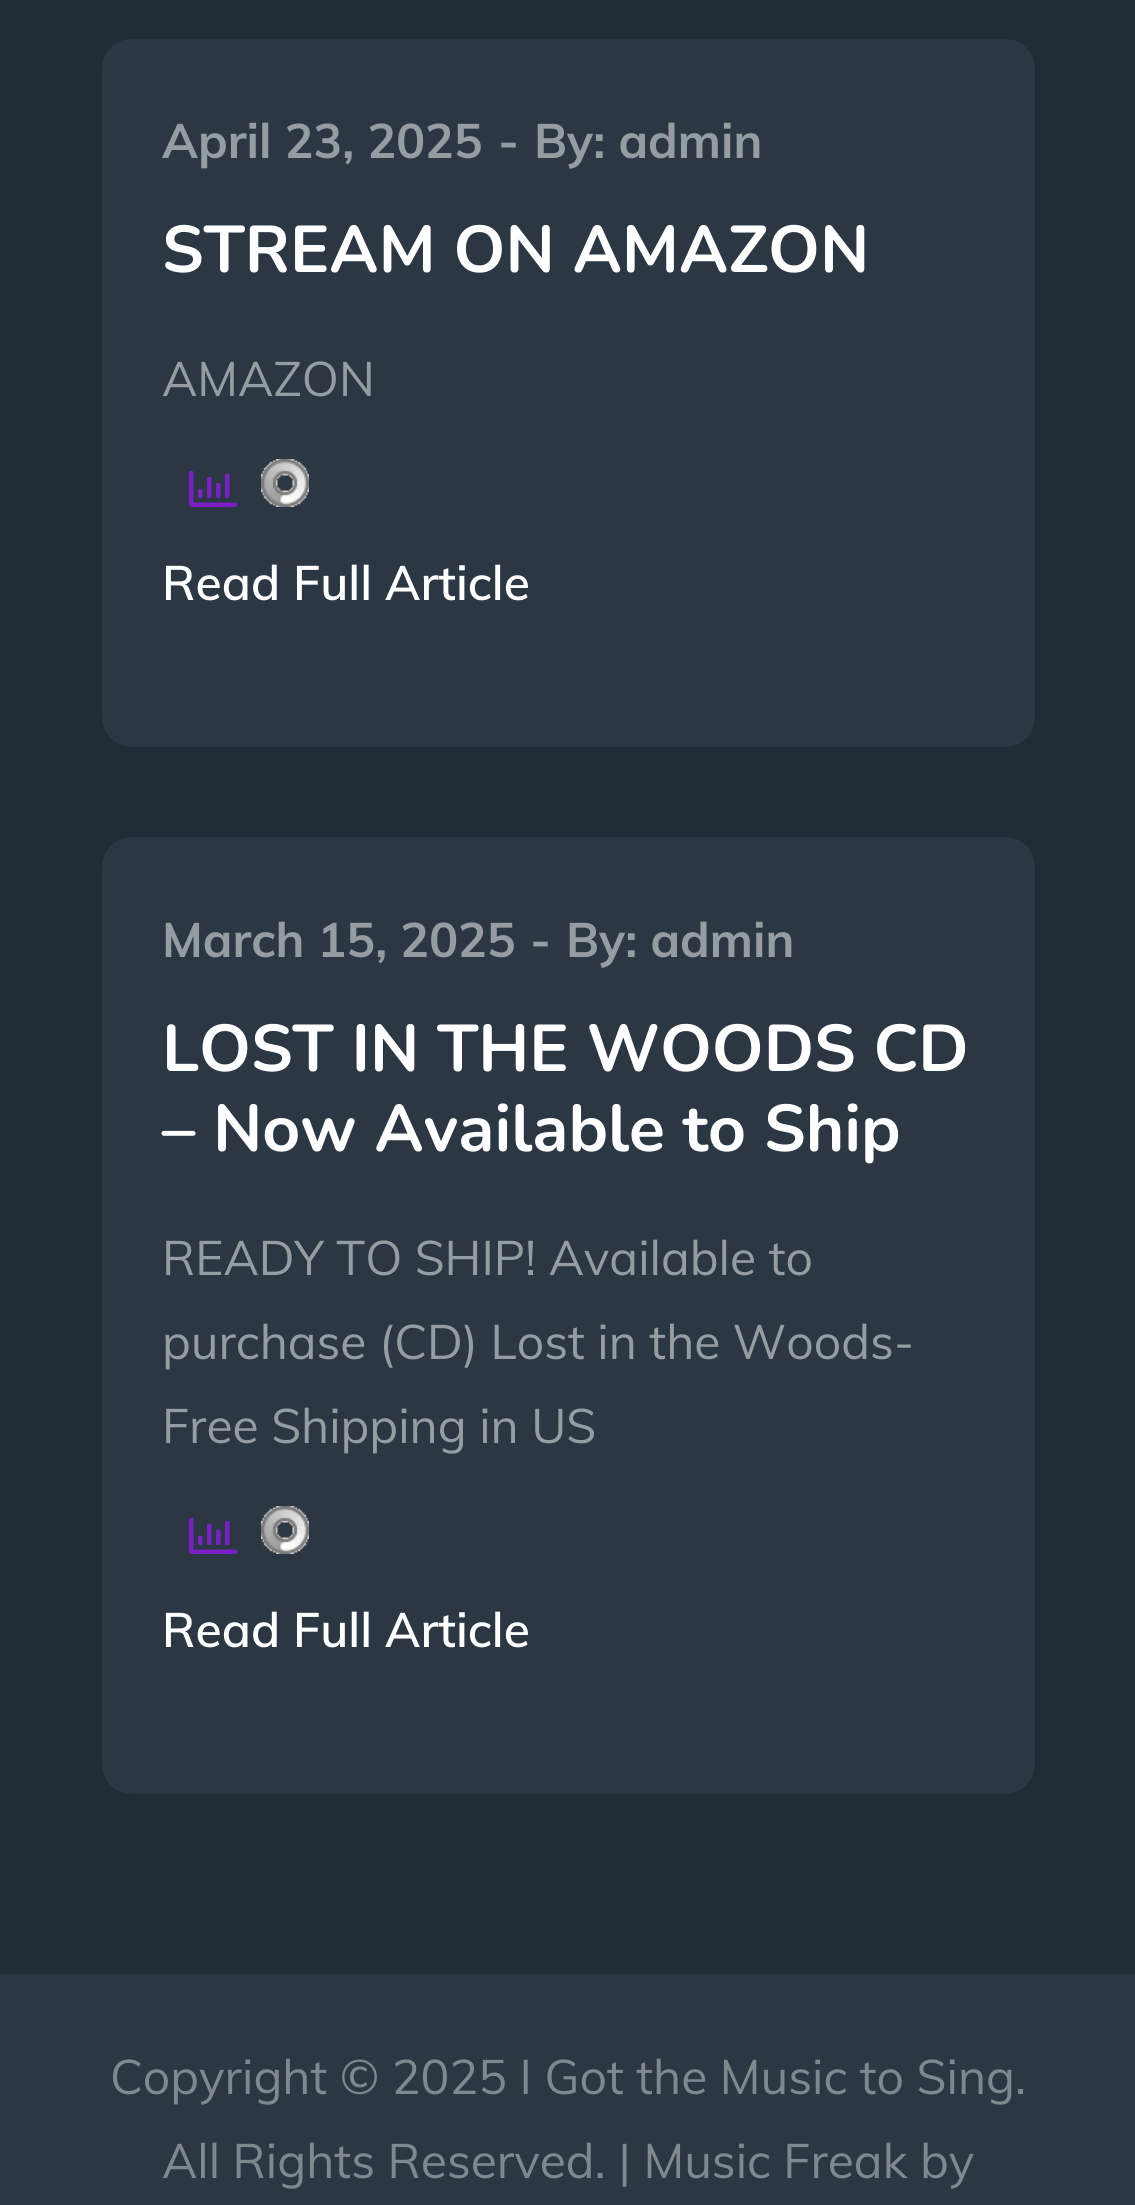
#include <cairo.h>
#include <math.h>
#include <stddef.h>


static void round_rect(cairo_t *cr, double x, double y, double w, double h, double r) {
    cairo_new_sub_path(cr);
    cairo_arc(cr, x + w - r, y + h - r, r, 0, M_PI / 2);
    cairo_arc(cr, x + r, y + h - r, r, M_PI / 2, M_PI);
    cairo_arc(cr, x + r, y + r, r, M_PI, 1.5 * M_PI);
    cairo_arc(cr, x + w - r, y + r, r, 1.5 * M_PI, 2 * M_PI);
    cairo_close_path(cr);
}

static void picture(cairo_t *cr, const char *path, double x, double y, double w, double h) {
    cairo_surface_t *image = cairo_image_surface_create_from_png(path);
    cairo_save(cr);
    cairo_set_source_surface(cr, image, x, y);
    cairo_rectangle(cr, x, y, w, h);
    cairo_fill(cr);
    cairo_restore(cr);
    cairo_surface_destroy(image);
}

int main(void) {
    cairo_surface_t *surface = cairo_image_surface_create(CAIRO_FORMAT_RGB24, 1135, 2205);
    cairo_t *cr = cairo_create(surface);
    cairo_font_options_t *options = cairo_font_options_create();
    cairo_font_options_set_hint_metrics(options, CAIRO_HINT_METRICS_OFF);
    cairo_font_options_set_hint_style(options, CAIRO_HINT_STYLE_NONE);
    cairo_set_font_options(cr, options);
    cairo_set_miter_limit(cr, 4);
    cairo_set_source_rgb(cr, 0.125, 0.173, 0.212);
    cairo_paint(cr);
    cairo_set_source_rgb(cr, 0.169, 0.22, 0.267);
    round_rect(cr, 102, 39, 933, 708, 30);
    cairo_fill(cr);
    cairo_select_font_face(cr, "Muli", CAIRO_FONT_SLANT_NORMAL, CAIRO_FONT_WEIGHT_BOLD);
    cairo_set_font_size(cr, 48);
    cairo_set_source_rgb(cr, 0.584, 0.612, 0.635);
    cairo_move_to(cr, 162, 158);
    cairo_show_text(cr, "April 23, 2025");
    cairo_move_to(cr, 498, 158);
    cairo_show_text(cr, "-");
    cairo_move_to(cr, 534, 158);
    cairo_show_text(cr, "By: admin");
    cairo_select_font_face(cr, "Nunito", CAIRO_FONT_SLANT_NORMAL, CAIRO_FONT_WEIGHT_BOLD);
    cairo_set_font_size(cr, 66);
    cairo_set_source_rgb(cr, 1, 1, 1);
    cairo_move_to(cr, 162, 272);
    cairo_show_text(cr, "STREAM ON AMAZON");
    cairo_select_font_face(cr, "Muli", CAIRO_FONT_SLANT_NORMAL, CAIRO_FONT_WEIGHT_NORMAL);
    cairo_set_font_size(cr, 48);
    cairo_set_source_rgb(cr, 0.584, 0.612, 0.635);
    cairo_move_to(cr, 162, 396);
    cairo_show_text(cr, "AMAZON");
    picture(cr, "img1.png", 189, 471, 48, 36);
    picture(cr, "img2.png", 261, 459, 48, 48);
    cairo_select_font_face(cr, "Muli SemiBold", CAIRO_FONT_SLANT_NORMAL, CAIRO_FONT_WEIGHT_NORMAL);
    cairo_set_source_rgb(cr, 1, 1, 1);
    cairo_move_to(cr, 162, 600);
    cairo_show_text(cr, "Read Full Article");
    cairo_set_source_rgb(cr, 0.169, 0.22, 0.267);
    round_rect(cr, 102, 837, 933, 957, 30);
    cairo_fill(cr);
    cairo_select_font_face(cr, "Muli", CAIRO_FONT_SLANT_NORMAL, CAIRO_FONT_WEIGHT_BOLD);
    cairo_set_source_rgb(cr, 0.584, 0.612, 0.635);
    cairo_move_to(cr, 162, 957);
    cairo_show_text(cr, "March 15, 2025");
    cairo_move_to(cr, 530, 957);
    cairo_show_text(cr, "-");
    cairo_move_to(cr, 566, 957);
    cairo_show_text(cr, "By: admin");
    cairo_select_font_face(cr, "Nunito", CAIRO_FONT_SLANT_NORMAL, CAIRO_FONT_WEIGHT_BOLD);
    cairo_set_font_size(cr, 66);
    cairo_set_source_rgb(cr, 1, 1, 1);
    cairo_move_to(cr, 162, 1071);
    cairo_show_text(cr, "LOST IN THE WOODS CD");
    cairo_move_to(cr, 162, 1151);
    cairo_show_text(cr, "– Now Available to Ship");
    cairo_select_font_face(cr, "Muli", CAIRO_FONT_SLANT_NORMAL, CAIRO_FONT_WEIGHT_NORMAL);
    cairo_set_font_size(cr, 48);
    cairo_set_source_rgb(cr, 0.584, 0.612, 0.635);
    cairo_move_to(cr, 162, 1275);
    cairo_show_text(cr, "READY TO SHIP! Available to");
    cairo_move_to(cr, 162, 1359);
    cairo_show_text(cr, "purchase (CD) Lost in the Woods-");
    cairo_move_to(cr, 162, 1443);
    cairo_show_text(cr, "Free Shipping in US");
    picture(cr, "img1.png", 189, 1518, 48, 36);
    picture(cr, "img2.png", 261, 1506, 48, 48);
    cairo_select_font_face(cr, "Muli SemiBold", CAIRO_FONT_SLANT_NORMAL, CAIRO_FONT_WEIGHT_NORMAL);
    cairo_set_source_rgb(cr, 1, 1, 1);
    cairo_move_to(cr, 162, 1647);
    cairo_show_text(cr, "Read Full Article");
    cairo_set_source_rgb(cr, 0.169, 0.22, 0.267);
    cairo_rectangle(cr, 0, 1974, 1135, 231);
    cairo_fill(cr);
    cairo_select_font_face(cr, "Muli", CAIRO_FONT_SLANT_NORMAL, CAIRO_FONT_WEIGHT_NORMAL);
    cairo_set_source_rgb(cr, 0.502, 0.533, 0.561);
    cairo_move_to(cr, 110, 2094);
    cairo_show_text(cr, "Copyright © 2025 I Got the Music to Sing.");
    cairo_move_to(cr, 162, 2178);
    cairo_show_text(cr, "All Rights Reserved. | Music Freak by");
    cairo_surface_write_to_png(surface, "page.png");
    cairo_font_options_destroy(options);
    cairo_destroy(cr);
    cairo_surface_destroy(surface);
    return 0;
}
